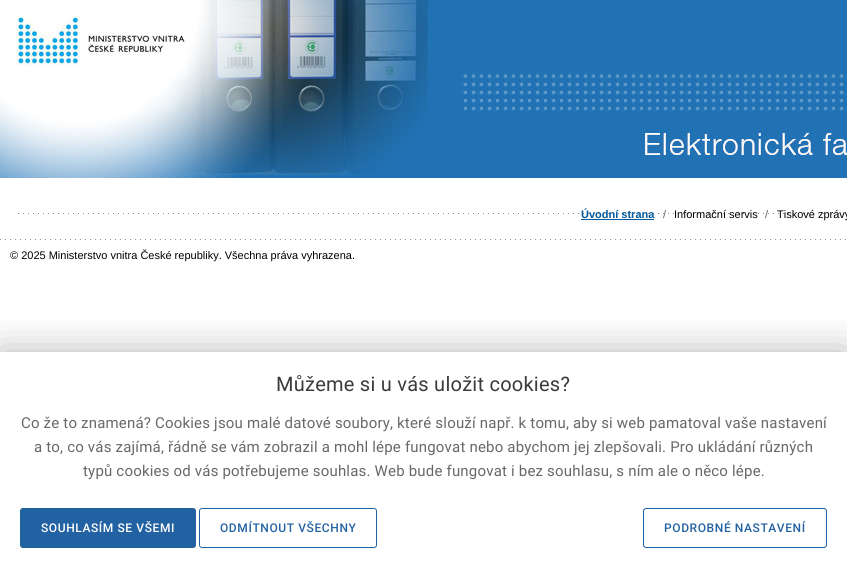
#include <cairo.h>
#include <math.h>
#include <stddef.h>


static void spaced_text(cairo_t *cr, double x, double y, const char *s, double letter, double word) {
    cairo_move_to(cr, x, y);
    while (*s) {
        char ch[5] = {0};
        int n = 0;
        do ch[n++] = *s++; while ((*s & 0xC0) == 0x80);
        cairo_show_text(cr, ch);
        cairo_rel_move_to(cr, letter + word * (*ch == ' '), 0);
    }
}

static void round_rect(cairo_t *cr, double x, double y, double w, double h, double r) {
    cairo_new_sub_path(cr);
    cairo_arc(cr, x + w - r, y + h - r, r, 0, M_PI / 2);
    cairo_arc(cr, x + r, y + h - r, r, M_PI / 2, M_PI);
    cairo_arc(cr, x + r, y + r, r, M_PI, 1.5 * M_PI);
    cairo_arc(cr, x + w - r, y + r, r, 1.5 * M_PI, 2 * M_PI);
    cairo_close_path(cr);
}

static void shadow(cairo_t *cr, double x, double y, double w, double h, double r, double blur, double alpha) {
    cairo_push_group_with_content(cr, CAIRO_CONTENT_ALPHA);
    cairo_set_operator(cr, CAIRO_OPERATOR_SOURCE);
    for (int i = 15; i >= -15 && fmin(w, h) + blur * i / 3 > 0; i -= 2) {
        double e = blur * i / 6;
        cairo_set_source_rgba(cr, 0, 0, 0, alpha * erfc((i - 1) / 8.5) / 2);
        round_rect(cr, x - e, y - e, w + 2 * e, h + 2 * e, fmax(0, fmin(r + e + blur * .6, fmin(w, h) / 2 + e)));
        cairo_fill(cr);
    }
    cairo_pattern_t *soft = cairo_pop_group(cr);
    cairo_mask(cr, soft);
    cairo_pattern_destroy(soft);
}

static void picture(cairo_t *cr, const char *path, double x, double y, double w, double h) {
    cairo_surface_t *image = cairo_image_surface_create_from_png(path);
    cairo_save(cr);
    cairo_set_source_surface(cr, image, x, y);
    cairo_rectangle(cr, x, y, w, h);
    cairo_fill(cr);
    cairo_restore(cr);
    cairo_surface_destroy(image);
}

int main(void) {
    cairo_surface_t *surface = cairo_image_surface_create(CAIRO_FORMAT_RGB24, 847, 568);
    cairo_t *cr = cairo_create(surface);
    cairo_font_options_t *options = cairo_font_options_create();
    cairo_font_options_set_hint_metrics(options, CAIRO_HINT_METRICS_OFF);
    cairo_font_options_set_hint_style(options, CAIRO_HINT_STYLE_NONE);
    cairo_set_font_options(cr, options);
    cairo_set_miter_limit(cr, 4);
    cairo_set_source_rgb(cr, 1, 1, 1);
    cairo_paint(cr);
    picture(cr, "img1.png", 0, 0, 847, 178);
    picture(cr, "img2.png", 18, 213, 826, 1);
    cairo_select_font_face(cr, "Liberation Sans", CAIRO_FONT_SLANT_NORMAL, CAIRO_FONT_WEIGHT_BOLD);
    cairo_set_font_size(cr, 11);
    cairo_set_source_rgb(cr, 0, 0.349, 0.608);
    cairo_move_to(cr, 581, 218);
    cairo_show_text(cr, "Úvodní strana");
    cairo_rectangle(cr, 581, 219, 73, 1);
    cairo_fill(cr);
    cairo_select_font_face(cr, "Liberation Sans", CAIRO_FONT_SLANT_NORMAL, CAIRO_FONT_WEIGHT_NORMAL);
    cairo_set_source_rgb(cr, 0.373, 0.373, 0.373);
    cairo_move_to(cr, 663, 218);
    cairo_show_text(cr, "/");
    cairo_set_source_rgb(cr, 0, 0, 0);
    cairo_move_to(cr, 674, 218);
    cairo_show_text(cr, "Informační servis");
    cairo_set_source_rgb(cr, 0.373, 0.373, 0.373);
    cairo_move_to(cr, 765, 218);
    cairo_show_text(cr, "/");
    cairo_set_source_rgb(cr, 0, 0, 0);
    cairo_move_to(cr, 777, 218);
    cairo_show_text(cr, "Tiskové zprávy");
    picture(cr, "img3.png", 0, 239, 846, 1);
    cairo_move_to(cr, 10, 259);
    cairo_show_text(cr, "© 2025 Ministerstvo vnitra České republiky. Všechna práva vyhrazena.");
    cairo_save(cr);
    cairo_rectangle(cr, 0, 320, 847, 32);
    cairo_clip(cr);
    cairo_set_source_rgb(cr, 0.231, 0.231, 0.231);
    shadow(cr, 0, 353, 847, 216, 0, 20, 0.4);
    cairo_restore(cr);
    cairo_select_font_face(cr, "Roboto", CAIRO_FONT_SLANT_NORMAL, CAIRO_FONT_WEIGHT_NORMAL);
    cairo_set_font_size(cr, 20);
    cairo_set_source_rgb(cr, 0.231, 0.231, 0.231);
    spaced_text(cr, 276, 391, "Můžeme si u vás uložit cookies?", 0.25, 0);
    cairo_set_font_size(cr, 15);
    cairo_set_source_rgb(cr, 0.408, 0.408, 0.408);
    spaced_text(cr, 21, 428, "Co že to znamená? Cookies jsou malé datové soubory, které slouží např. k tomu, aby si web pamatoval vaše nastavení", 0.19, 0);
    spaced_text(cr, 34, 452, "a to, co vás zajímá, řádně se vám zobrazil a mohl lépe fungovat nebo abychom jej zlepšovali. Pro ukládání různých", 0.19, 0);
    spaced_text(cr, 83, 476, "typů cookies od vás potřebujeme souhlas. Web bude fungovat i bez souhlasu, s ním ale o něco lépe.", 0.19, 0);
    cairo_set_source_rgb(cr, 0.137, 0.384, 0.635);
    round_rect(cr, 20.5, 508.5, 175, 39, 2.5);
    cairo_fill_preserve(cr);
    cairo_set_line_width(cr, 1);
    cairo_stroke(cr);
    cairo_select_font_face(cr, "Roboto Medium", CAIRO_FONT_SLANT_NORMAL, CAIRO_FONT_WEIGHT_NORMAL);
    cairo_set_font_size(cr, 12);
    cairo_set_source_rgb(cr, 1, 1, 1);
    spaced_text(cr, 41, 532, "SOUHLASÍM SE VŠEMI", 0.6, 0);
    round_rect(cr, 199.5, 508.5, 177, 39, 2.5);
    cairo_set_source_rgb(cr, 0.137, 0.384, 0.635);
    cairo_stroke(cr);
    spaced_text(cr, 220, 532, "ODMÍTNOUT VŠECHNY", 0.6, 0);
    round_rect(cr, 643.5, 508.5, 183, 39, 2.5);
    cairo_stroke(cr);
    spaced_text(cr, 664, 532, "PODROBNÉ NASTAVENÍ", 0.6, 0);
    cairo_surface_write_to_png(surface, "page.png");
    cairo_font_options_destroy(options);
    cairo_destroy(cr);
    cairo_surface_destroy(surface);
    return 0;
}
